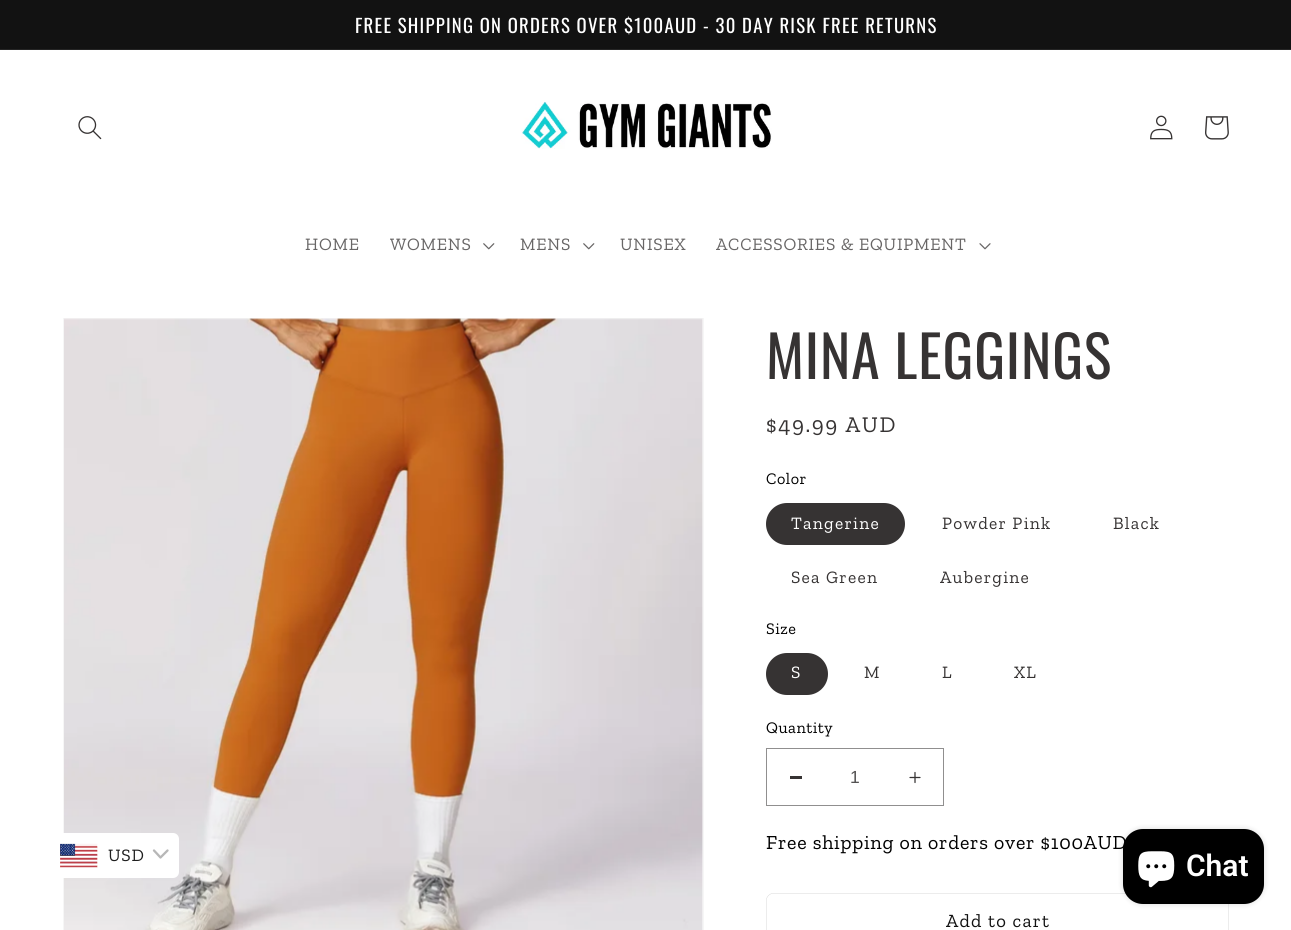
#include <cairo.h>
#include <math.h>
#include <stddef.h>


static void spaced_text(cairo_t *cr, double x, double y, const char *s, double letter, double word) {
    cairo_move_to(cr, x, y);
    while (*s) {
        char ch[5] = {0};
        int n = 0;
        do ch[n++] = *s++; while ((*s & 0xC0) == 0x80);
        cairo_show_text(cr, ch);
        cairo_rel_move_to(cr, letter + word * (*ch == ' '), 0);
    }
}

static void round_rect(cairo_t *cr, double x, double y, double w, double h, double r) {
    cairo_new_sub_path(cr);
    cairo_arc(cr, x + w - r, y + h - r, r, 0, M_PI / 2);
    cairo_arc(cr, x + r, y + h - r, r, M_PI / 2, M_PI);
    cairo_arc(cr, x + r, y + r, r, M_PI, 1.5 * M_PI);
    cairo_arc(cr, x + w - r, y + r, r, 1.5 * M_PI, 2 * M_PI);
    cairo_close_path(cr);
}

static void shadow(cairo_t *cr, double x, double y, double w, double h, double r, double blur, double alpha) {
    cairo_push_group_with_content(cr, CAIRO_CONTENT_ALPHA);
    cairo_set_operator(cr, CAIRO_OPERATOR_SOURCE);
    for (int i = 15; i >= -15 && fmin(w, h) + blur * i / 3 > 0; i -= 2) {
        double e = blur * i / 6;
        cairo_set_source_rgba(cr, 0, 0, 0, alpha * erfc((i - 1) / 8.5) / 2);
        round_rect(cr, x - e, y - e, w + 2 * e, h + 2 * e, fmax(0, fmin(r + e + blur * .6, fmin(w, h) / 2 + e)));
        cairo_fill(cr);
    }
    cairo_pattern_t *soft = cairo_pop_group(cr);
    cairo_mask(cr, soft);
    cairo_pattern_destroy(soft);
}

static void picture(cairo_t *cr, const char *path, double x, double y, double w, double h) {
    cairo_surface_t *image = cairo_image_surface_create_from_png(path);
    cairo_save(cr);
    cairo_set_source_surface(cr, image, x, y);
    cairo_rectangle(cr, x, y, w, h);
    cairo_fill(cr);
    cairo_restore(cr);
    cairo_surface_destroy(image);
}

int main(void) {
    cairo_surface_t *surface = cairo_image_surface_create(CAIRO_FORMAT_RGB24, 1291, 930);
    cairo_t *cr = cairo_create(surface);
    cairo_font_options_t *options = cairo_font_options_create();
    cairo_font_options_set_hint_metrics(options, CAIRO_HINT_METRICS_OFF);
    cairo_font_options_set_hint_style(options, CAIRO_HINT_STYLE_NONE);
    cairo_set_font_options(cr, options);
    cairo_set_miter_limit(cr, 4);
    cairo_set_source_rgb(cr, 1, 1, 1);
    cairo_paint(cr);
    cairo_set_source_rgb(cr, 0.071, 0.071, 0.071);
    cairo_rectangle(cr, 0, 0, 1291, 49);
    cairo_fill(cr);
    cairo_set_source_rgb(cr, 0.145, 0.145, 0.145);
    cairo_rectangle(cr, 0, 49, 1291, 1);
    cairo_fill(cr);
    cairo_select_font_face(cr, "Oswald", CAIRO_FONT_SLANT_NORMAL, CAIRO_FONT_WEIGHT_NORMAL);
    cairo_set_font_size(cr, 18.7);
    cairo_set_source_rgb(cr, 1, 1, 1);
    spaced_text(cr, 355, 33, "FREE SHIPPING ON ORDERS OVER $100AUD - 30 DAY RISK FREE RETURNS", 1.25, 0);
    picture(cr, "img1.png", 78, 116, 24, 24);
    picture(cr, "img2.png", 521, 100, 251, 49);
    picture(cr, "img3.png", 1150, 115, 23, 25);
    picture(cr, "img4.png", 1205, 116, 24, 24);
    cairo_select_font_face(cr, "Zilla Slab", CAIRO_FONT_SLANT_NORMAL, CAIRO_FONT_WEIGHT_NORMAL);
    cairo_set_font_size(cr, 17.5);
    cairo_set_source_rgb(cr, 0.408, 0.4, 0.4);
    spaced_text(cr, 305, 250, "HOME", 0.75, 0);
    spaced_text(cr, 390, 250, "WOMENS", 0.75, 0);
    picture(cr, "img5.png", 483, 243, 12, 7);
    spaced_text(cr, 520, 250, "MENS", 0.75, 0);
    picture(cr, "img5.png", 583, 243, 12, 7);
    spaced_text(cr, 620, 250, "UNISEX", 0.75, 0);
    spaced_text(cr, 716, 250, "ACCESSORIES & EQUIPMENT", 0.75, 0);
    picture(cr, "img6.png", 979, 243, 12, 7);
    cairo_rectangle(cr, 63.5, 318.5, 640, 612);
    cairo_set_source_rgb(cr, 0.961, 0.961, 0.961);
    cairo_set_line_width(cr, 1);
    cairo_stroke(cr);
    picture(cr, "img8.png", 64, 318, 639, 612);
    cairo_set_source_rgb(cr, 1, 1, 1);
    round_rect(cr, 50, 833, 129, 45, 6);
    cairo_fill(cr);
    picture(cr, "img7.png", 60, 843, 38, 25);
    cairo_set_source_rgb(cr, 0.118, 0.118, 0.118);
    spaced_text(cr, 108, 861, "USD", 0.75, 0);
    cairo_new_path(cr);
    cairo_move_to(cr, 154, 850.5);
    cairo_line_to(cr, 160.5, 857.5);
    cairo_line_to(cr, 167.5, 850.5);
    cairo_set_source_rgb(cr, 0.718, 0.718, 0.718);
    cairo_set_line_width(cr, 2.3);
    cairo_set_line_cap(cr, CAIRO_LINE_CAP_ROUND);
    cairo_set_line_join(cr, CAIRO_LINE_JOIN_ROUND);
    cairo_stroke(cr);
    cairo_select_font_face(cr, "Oswald", CAIRO_FONT_SLANT_NORMAL, CAIRO_FONT_WEIGHT_NORMAL);
    cairo_set_font_size(cr, 57.5);
    cairo_set_source_rgb(cr, 0.212, 0.2, 0.2);
    spaced_text(cr, 766, 379, "MINA LEGGINGS", 0.9, 0);
    cairo_select_font_face(cr, "Zilla Slab", CAIRO_FONT_SLANT_NORMAL, CAIRO_FONT_WEIGHT_NORMAL);
    cairo_set_font_size(cr, 22.5);
    spaced_text(cr, 766, 432, "$49.99 AUD", 1.6, 0);
    cairo_set_font_size(cr, 16.25);
    cairo_set_source_rgb(cr, 0, 0, 0);
    spaced_text(cr, 766, 484, "Color", 0.5, 0);
    cairo_set_source_rgb(cr, 0.212, 0.2, 0.2);
    round_rect(cr, 766, 503, 139, 42, 21);
    cairo_fill(cr);
    cairo_set_font_size(cr, 17.5);
    cairo_set_source_rgb(cr, 1, 1, 1);
    spaced_text(cr, 791, 529, "Tangerine", 1.25, 0);
    cairo_set_source_rgb(cr, 0.212, 0.2, 0.2);
    spaced_text(cr, 942, 529, "Powder Pink", 1.25, 0);
    spaced_text(cr, 1113, 529, "Black", 1.25, 0);
    spaced_text(cr, 791, 583, "Sea Green", 1.25, 0);
    spaced_text(cr, 940, 583, "Aubergine", 1.25, 0);
    cairo_set_font_size(cr, 16.25);
    cairo_set_source_rgb(cr, 0, 0, 0);
    spaced_text(cr, 766, 634, "Size", 0.5, 0);
    cairo_set_source_rgb(cr, 0.212, 0.2, 0.2);
    round_rect(cr, 766, 653, 62, 42, 21);
    cairo_fill(cr);
    cairo_set_font_size(cr, 17.5);
    cairo_set_source_rgb(cr, 1, 1, 1);
    spaced_text(cr, 791, 678, "S", 1.25, 0);
    cairo_set_source_rgb(cr, 0.212, 0.2, 0.2);
    spaced_text(cr, 864, 678, "M", 1.25, 0);
    spaced_text(cr, 942, 678, "L", 1.25, 0);
    spaced_text(cr, 1014, 678, "XL", 1.25, 0);
    cairo_set_font_size(cr, 16.25);
    cairo_set_source_rgb(cr, 0, 0, 0);
    spaced_text(cr, 766, 733, "Quantity", 0.5, 0);
    cairo_set_source_rgb(cr, 0.212, 0.2, 0.2);
    cairo_rectangle(cr, 790, 776, 12, 3);
    cairo_fill(cr);
    picture(cr, "img9.png", 909, 771, 12, 13);
    cairo_rectangle(cr, 766.5, 748.5, 177, 57);
    cairo_set_source_rgb(cr, 0.565, 0.561, 0.561);
    cairo_set_line_width(cr, 1);
    cairo_set_line_cap(cr, CAIRO_LINE_CAP_BUTT);
    cairo_set_line_join(cr, CAIRO_LINE_JOIN_MITER);
    cairo_stroke(cr);
    cairo_select_font_face(cr, "Liberation Sans", CAIRO_FONT_SLANT_NORMAL, CAIRO_FONT_WEIGHT_NORMAL);
    cairo_set_font_size(cr, 17.5);
    cairo_set_source_rgb(cr, 0.329, 0.322, 0.322);
    cairo_move_to(cr, 850, 783);
    cairo_show_text(cr, "1");
    cairo_select_font_face(cr, "Zilla Slab", CAIRO_FONT_SLANT_NORMAL, CAIRO_FONT_WEIGHT_NORMAL);
    cairo_set_font_size(cr, 20);
    cairo_set_source_rgb(cr, 0, 0, 0);
    spaced_text(cr, 766, 849, "Free shipping on orders over $100AUD", 0.75, 0);
    round_rect(cr, 766.2, 893.2, 462.6, 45.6, 7.8);
    cairo_set_source_rgb(cr, 0.816, 0.816, 0.816);
    cairo_set_line_width(cr, 0.4);
    cairo_stroke(cr);
    cairo_set_font_size(cr, 18.75);
    cairo_set_source_rgb(cr, 0.071, 0.071, 0.071);
    spaced_text(cr, 946, 927, "Add to cart", 1.25, 0);
    cairo_set_source_rgb(cr, 0, 0, 0);
    shadow(cr, 1123, 829, 141, 75, 20, 3, 0.15);
    cairo_set_source_rgb(cr, 0, 0, 0);
    round_rect(cr, 1123, 829, 141, 75, 20);
    cairo_fill(cr);
    picture(cr, "img10.png", 1138, 851, 37, 37);
    cairo_select_font_face(cr, "Roboto SemiBold", CAIRO_FONT_SLANT_NORMAL, CAIRO_FONT_WEIGHT_NORMAL);
    cairo_set_font_size(cr, 30);
    cairo_set_source_rgb(cr, 1, 1, 1);
    cairo_move_to(cr, 1186, 876);
    cairo_show_text(cr, "Chat");
    cairo_surface_write_to_png(surface, "page.png");
    cairo_font_options_destroy(options);
    cairo_destroy(cr);
    cairo_surface_destroy(surface);
    return 0;
}
